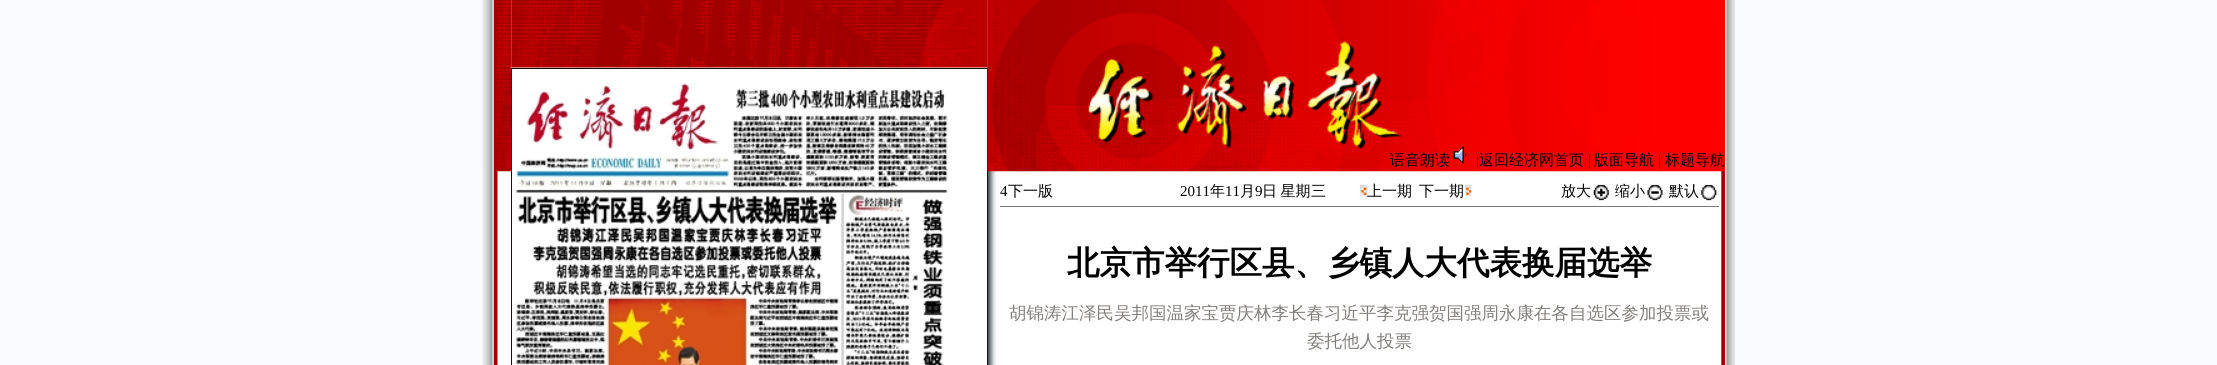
#include <cairo.h>
#include <math.h>
#include <stddef.h>


static void spaced_text(cairo_t *cr, double x, double y, const char *s, double letter, double word) {
    cairo_move_to(cr, x, y);
    while (*s) {
        char ch[5] = {0};
        int n = 0;
        do ch[n++] = *s++; while ((*s & 0xC0) == 0x80);
        cairo_show_text(cr, ch);
        cairo_rel_move_to(cr, letter + word * (*ch == ' '), 0);
    }
}

static void picture(cairo_t *cr, const char *path, double x, double y, double w, double h) {
    cairo_surface_t *image = cairo_image_surface_create_from_png(path);
    cairo_save(cr);
    cairo_set_source_surface(cr, image, x, y);
    cairo_rectangle(cr, x, y, w, h);
    cairo_fill(cr);
    cairo_restore(cr);
    cairo_surface_destroy(image);
}

int main(void) {
    cairo_surface_t *surface = cairo_image_surface_create(CAIRO_FORMAT_RGB24, 2217, 365);
    cairo_t *cr = cairo_create(surface);
    cairo_font_options_t *options = cairo_font_options_create();
    cairo_font_options_set_hint_metrics(options, CAIRO_HINT_METRICS_OFF);
    cairo_font_options_set_hint_style(options, CAIRO_HINT_STYLE_NONE);
    cairo_set_font_options(cr, options);
    cairo_set_miter_limit(cr, 4);
    cairo_set_source_rgb(cr, 0.969, 0.98, 1);
    cairo_paint(cr);
    picture(cr, "img1.png", 482, 0, 1253, 365);
    picture(cr, "img4.png", 987, 0, 12, 365);
    cairo_rectangle(cr, 511.5, 68.5, 476, 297);
    cairo_set_source_rgb(cr, 0.067, 0.067, 0.067);
    cairo_set_line_width(cr, 1);
    cairo_stroke(cr);
    picture(cr, "img2.png", 482, 0, 30, 172);
    picture(cr, "img3.png", 511, 0, 477, 68);
    picture(cr, "img5.png", 987, 0, 13, 172);
    picture(cr, "img6.png", 516, 83, 432, 282);
    picture(cr, "img7.png", 1000, 0, 725, 172);
    cairo_select_font_face(cr, "WenQuanYi Zen Hei Medium", CAIRO_FONT_SLANT_NORMAL, CAIRO_FONT_WEIGHT_NORMAL);
    cairo_set_font_size(cr, 15);
    cairo_set_source_rgb(cr, 0, 0, 0);
    cairo_move_to(cr, 1390, 165);
    cairo_show_text(cr, "语音朗读");
    picture(cr, "img8.png", 1453, 146, 14, 18);
    cairo_select_font_face(cr, "Liberation Serif", CAIRO_FONT_SLANT_NORMAL, CAIRO_FONT_WEIGHT_NORMAL);
    cairo_move_to(cr, 1476, 165);
    cairo_show_text(cr, "|");
    cairo_select_font_face(cr, "WenQuanYi Zen Hei Medium", CAIRO_FONT_SLANT_NORMAL, CAIRO_FONT_WEIGHT_NORMAL);
    cairo_move_to(cr, 1479, 165);
    cairo_show_text(cr, "返回经济网首页");
    cairo_select_font_face(cr, "Liberation Serif", CAIRO_FONT_SLANT_NORMAL, CAIRO_FONT_WEIGHT_NORMAL);
    cairo_move_to(cr, 1588, 165);
    cairo_show_text(cr, "|");
    cairo_select_font_face(cr, "WenQuanYi Zen Hei Medium", CAIRO_FONT_SLANT_NORMAL, CAIRO_FONT_WEIGHT_NORMAL);
    cairo_move_to(cr, 1594, 165);
    cairo_show_text(cr, "版面导航");
    cairo_select_font_face(cr, "Liberation Serif", CAIRO_FONT_SLANT_NORMAL, CAIRO_FONT_WEIGHT_NORMAL);
    cairo_move_to(cr, 1658, 165);
    cairo_show_text(cr, "|");
    cairo_select_font_face(cr, "WenQuanYi Zen Hei Medium", CAIRO_FONT_SLANT_NORMAL, CAIRO_FONT_WEIGHT_NORMAL);
    cairo_move_to(cr, 1665, 165);
    cairo_show_text(cr, "标题导航");
    cairo_set_source_rgb(cr, 0.471, 0.471, 0.471);
    cairo_rectangle(cr, 1000, 206, 719, 1);
    cairo_fill(cr);
    cairo_select_font_face(cr, "Liberation Serif", CAIRO_FONT_SLANT_NORMAL, CAIRO_FONT_WEIGHT_NORMAL);
    cairo_set_source_rgb(cr, 0, 0, 0);
    cairo_move_to(cr, 1000, 196);
    cairo_show_text(cr, "4");
    cairo_select_font_face(cr, "WenQuanYi Zen Hei Medium", CAIRO_FONT_SLANT_NORMAL, CAIRO_FONT_WEIGHT_NORMAL);
    cairo_move_to(cr, 1008, 196);
    cairo_show_text(cr, "下一版");
    cairo_select_font_face(cr, "Liberation Serif", CAIRO_FONT_SLANT_NORMAL, CAIRO_FONT_WEIGHT_NORMAL);
    cairo_move_to(cr, 1180, 196);
    cairo_show_text(cr, "2011");
    cairo_select_font_face(cr, "WenQuanYi Zen Hei Medium", CAIRO_FONT_SLANT_NORMAL, CAIRO_FONT_WEIGHT_NORMAL);
    cairo_move_to(cr, 1210, 196);
    cairo_show_text(cr, "年");
    cairo_select_font_face(cr, "Liberation Serif", CAIRO_FONT_SLANT_NORMAL, CAIRO_FONT_WEIGHT_NORMAL);
    cairo_move_to(cr, 1225, 196);
    cairo_show_text(cr, "11");
    cairo_select_font_face(cr, "WenQuanYi Zen Hei Medium", CAIRO_FONT_SLANT_NORMAL, CAIRO_FONT_WEIGHT_NORMAL);
    cairo_move_to(cr, 1240, 196);
    cairo_show_text(cr, "月");
    cairo_select_font_face(cr, "Liberation Serif", CAIRO_FONT_SLANT_NORMAL, CAIRO_FONT_WEIGHT_NORMAL);
    cairo_move_to(cr, 1255, 196);
    cairo_show_text(cr, "9");
    cairo_select_font_face(cr, "WenQuanYi Zen Hei Medium", CAIRO_FONT_SLANT_NORMAL, CAIRO_FONT_WEIGHT_NORMAL);
    spaced_text(cr, 1262, 196, "日 星期", 0, -1);
    cairo_move_to(cr, 1311, 196);
    cairo_show_text(cr, "三");
    picture(cr, "img9.png", 1360, 185, 8, 12);
    cairo_move_to(cr, 1367, 196);
    cairo_show_text(cr, "上一期");
    cairo_move_to(cr, 1419, 196);
    cairo_show_text(cr, "下一期");
    picture(cr, "img10.png", 1465, 185, 7, 12);
    cairo_move_to(cr, 1561, 196);
    cairo_show_text(cr, "放大");
    picture(cr, "img11.png", 1593, 184, 16, 17);
    cairo_move_to(cr, 1615, 196);
    cairo_show_text(cr, "缩小");
    picture(cr, "img12.png", 1647, 184, 16, 17);
    cairo_move_to(cr, 1669, 196);
    cairo_show_text(cr, "默认");
    picture(cr, "img13.png", 1701, 184, 16, 17);
    cairo_select_font_face(cr, "WenQuanYi Zen Hei", CAIRO_FONT_SLANT_NORMAL, CAIRO_FONT_WEIGHT_BOLD);
    cairo_set_font_size(cr, 32.5);
    cairo_move_to(cr, 1067, 274);
    cairo_show_text(cr, "北京市举行区县、乡镇人大代表换届选举");
    cairo_select_font_face(cr, "WenQuanYi Zen Hei Medium", CAIRO_FONT_SLANT_NORMAL, CAIRO_FONT_WEIGHT_NORMAL);
    cairo_set_font_size(cr, 17.5);
    cairo_set_source_rgb(cr, 0.51, 0.494, 0.482);
    cairo_move_to(cr, 1009, 319);
    cairo_show_text(cr, "胡锦涛江泽民吴邦国温家宝贾庆林李长春习近平李克强贺国强周永康在各自选区参加投票或");
    cairo_move_to(cr, 1307, 347);
    cairo_show_text(cr, "委托他人投票");
    cairo_surface_write_to_png(surface, "page.png");
    cairo_font_options_destroy(options);
    cairo_destroy(cr);
    cairo_surface_destroy(surface);
    return 0;
}
